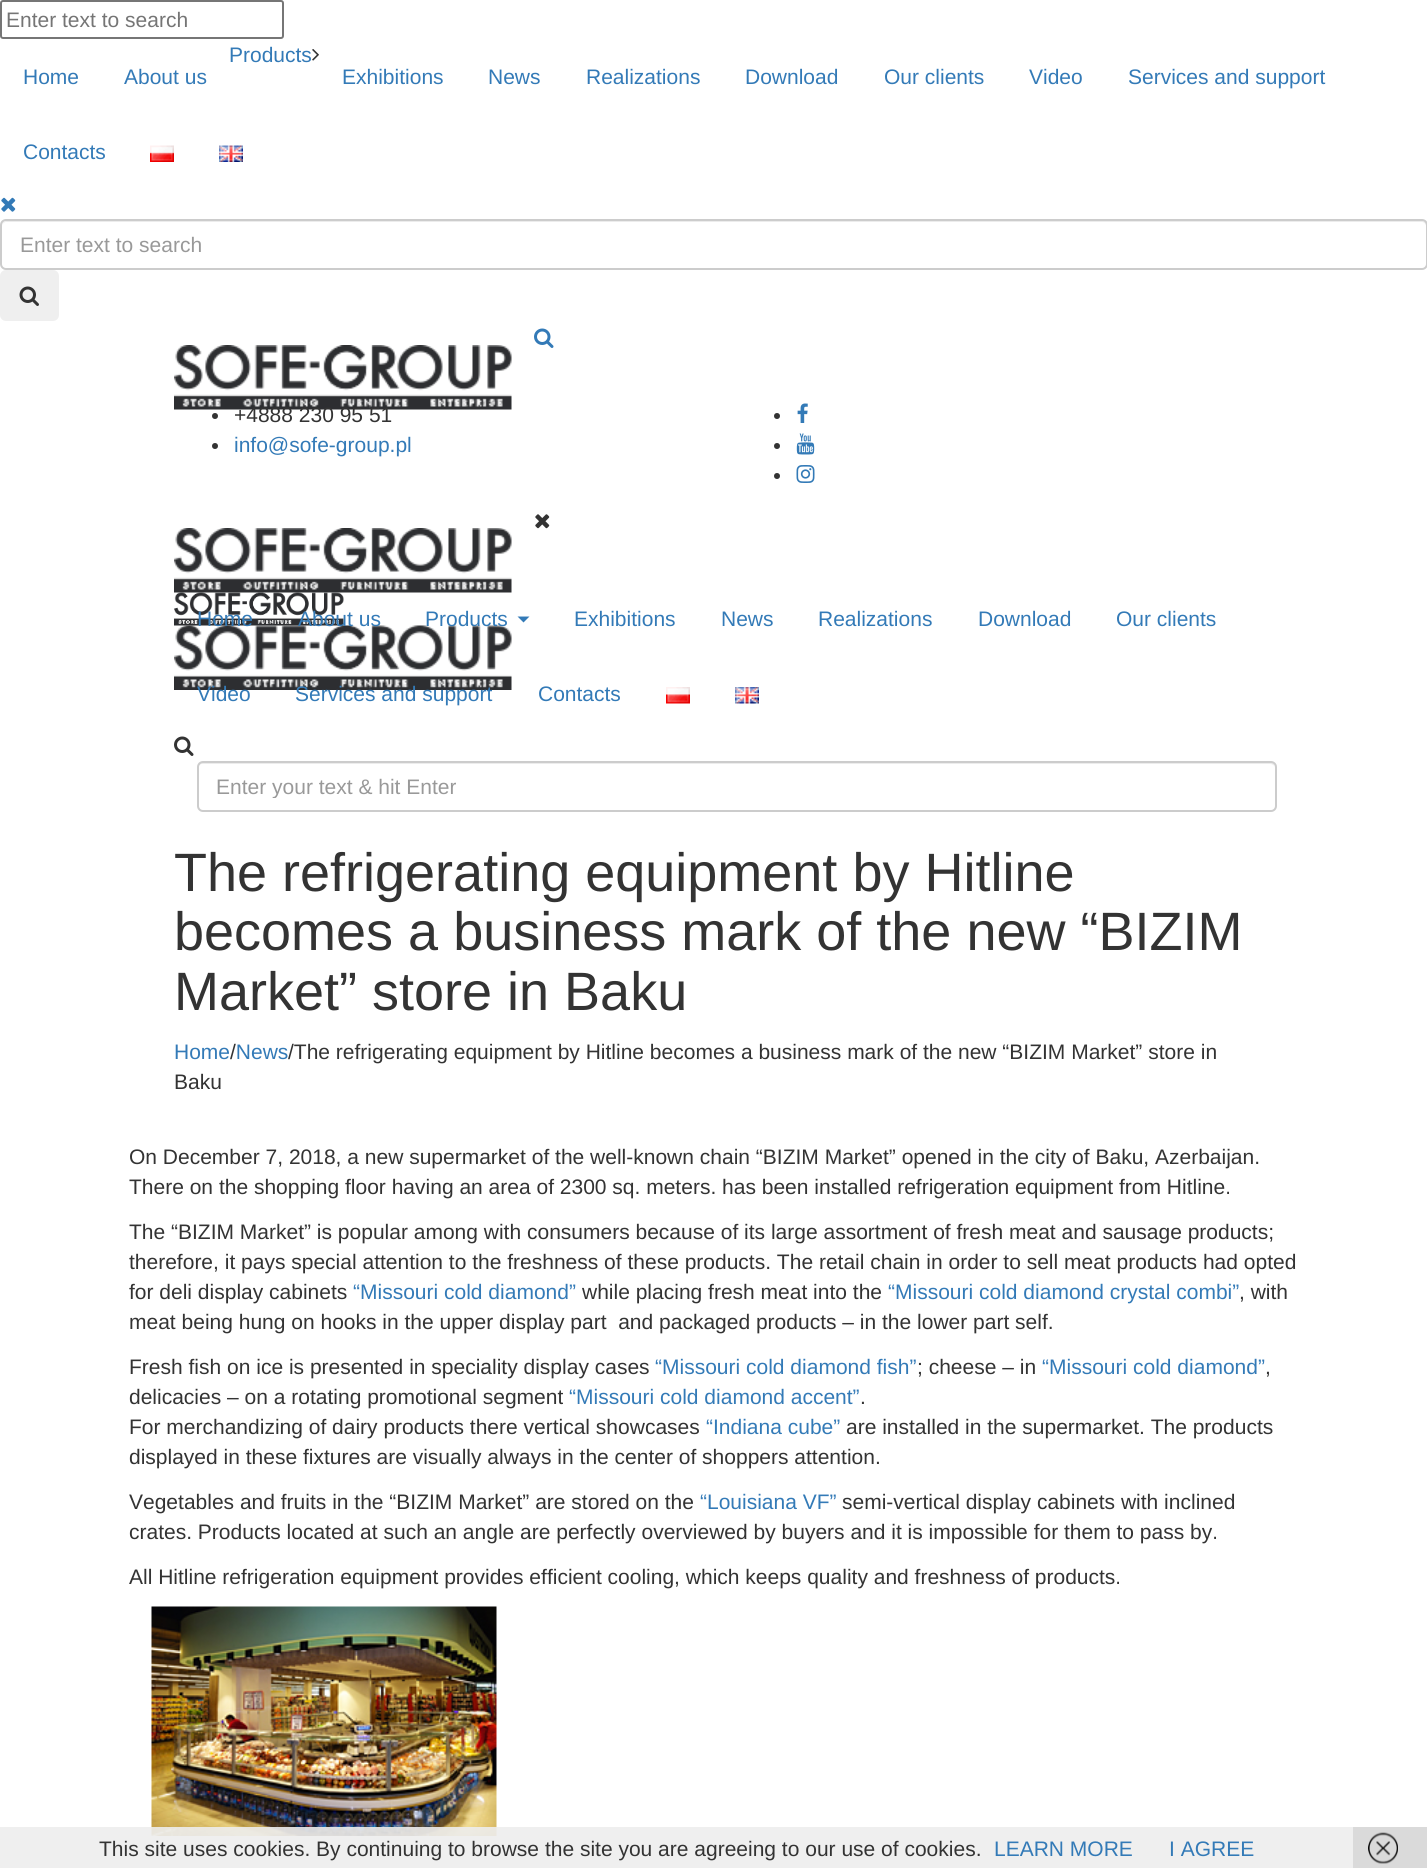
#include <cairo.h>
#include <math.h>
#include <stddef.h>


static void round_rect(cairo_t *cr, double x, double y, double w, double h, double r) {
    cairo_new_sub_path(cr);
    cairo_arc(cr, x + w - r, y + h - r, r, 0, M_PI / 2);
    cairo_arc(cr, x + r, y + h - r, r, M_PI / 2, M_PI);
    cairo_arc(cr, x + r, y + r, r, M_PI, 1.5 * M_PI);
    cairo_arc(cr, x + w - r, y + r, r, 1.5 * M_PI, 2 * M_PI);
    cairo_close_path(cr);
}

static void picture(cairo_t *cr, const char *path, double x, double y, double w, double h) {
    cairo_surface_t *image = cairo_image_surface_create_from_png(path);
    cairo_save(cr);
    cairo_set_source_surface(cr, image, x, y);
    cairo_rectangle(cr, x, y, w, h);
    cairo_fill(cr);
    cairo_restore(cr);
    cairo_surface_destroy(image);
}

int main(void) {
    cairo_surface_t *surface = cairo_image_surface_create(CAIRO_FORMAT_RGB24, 1427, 1868);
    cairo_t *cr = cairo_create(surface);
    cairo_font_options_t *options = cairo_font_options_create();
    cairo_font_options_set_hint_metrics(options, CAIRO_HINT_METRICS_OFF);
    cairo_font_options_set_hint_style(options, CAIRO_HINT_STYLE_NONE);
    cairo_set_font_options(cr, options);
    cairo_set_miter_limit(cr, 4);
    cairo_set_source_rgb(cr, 1, 1, 1);
    cairo_paint(cr);
    round_rect(cr, 1, 1, 282, 37, 2);
    cairo_set_source_rgb(cr, 0.463, 0.463, 0.463);
    cairo_stroke(cr);
    cairo_select_font_face(cr, "Liberation Sans", CAIRO_FONT_SLANT_NORMAL, CAIRO_FONT_WEIGHT_NORMAL);
    cairo_set_font_size(cr, 21);
    cairo_set_source_rgb(cr, 0.459, 0.459, 0.459);
    cairo_move_to(cr, 6, 27);
    cairo_show_text(cr, "Enter text to search");
    cairo_set_source_rgb(cr, 0.2, 0.478, 0.718);
    cairo_move_to(cr, 229, 62);
    cairo_show_text(cr, "Products");
    picture(cr, "img1.png", 312, 49, 7, 12);
    cairo_move_to(cr, 23, 84);
    cairo_show_text(cr, "Home");
    cairo_move_to(cr, 124, 84);
    cairo_show_text(cr, "About us");
    cairo_move_to(cr, 342, 84);
    cairo_show_text(cr, "Exhibitions");
    cairo_move_to(cr, 488, 84);
    cairo_show_text(cr, "News");
    cairo_move_to(cr, 586, 84);
    cairo_show_text(cr, "Realizations");
    cairo_move_to(cr, 745, 84);
    cairo_show_text(cr, "Download");
    cairo_move_to(cr, 884, 84);
    cairo_show_text(cr, "Our clients");
    cairo_move_to(cr, 1029, 84);
    cairo_show_text(cr, "Video");
    cairo_move_to(cr, 1128, 84);
    cairo_show_text(cr, "Services and support");
    cairo_move_to(cr, 23, 159);
    cairo_show_text(cr, "Contacts");
    picture(cr, "img2.png", 150, 145, 24, 17);
    picture(cr, "img3.png", 219, 145, 24, 17);
    picture(cr, "img4.png", 1, 197, 15, 15);
    cairo_set_source_rgb(cr, 0.925, 0.925, 0.925);
    cairo_new_path(cr);
    cairo_move_to(cr, 6, 222);
    cairo_line_to(cr, 1422, 222);
    cairo_curve_to(cr, 1424, 222, 1426, 224, 1426, 226);
    cairo_line_to(cr, 1426, 267);
    cairo_curve_to(cr, 1427, 266, 1427, 265, 1427, 264);
    cairo_line_to(cr, 1427, 226);
    cairo_curve_to(cr, 1427, 223, 1425, 221, 1422, 221);
    cairo_line_to(cr, 7, 221);
    cairo_curve_to(cr, 4, 221, 2, 223, 2, 226);
    cairo_curve_to(cr, 2, 224, 4, 222, 6, 222);
    cairo_close_path(cr);
    cairo_fill(cr);
    round_rect(cr, 1, 220, 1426, 49, 5);
    cairo_set_source_rgb(cr, 0.8, 0.8, 0.8);
    cairo_stroke(cr);
    cairo_set_source_rgb(cr, 0.6, 0.6, 0.6);
    cairo_move_to(cr, 20, 252);
    cairo_show_text(cr, "Enter text to search");
    cairo_set_source_rgb(cr, 0.937, 0.937, 0.937);
    round_rect(cr, 0, 270, 59, 51, 6);
    cairo_fill(cr);
    picture(cr, "img5.png", 19, 286, 20, 20);
    picture(cr, "img6.png", 534, 328, 20, 20);
    picture(cr, "img7.png", 174, 345, 338, 65);
    cairo_set_source_rgb(cr, 0.2, 0.2, 0.2);
    cairo_arc(cr, 215, 416, 3, 0, 2 * M_PI);
    cairo_fill(cr);
    cairo_move_to(cr, 234, 422);
    cairo_show_text(cr, "+4888 230 95 51");
    cairo_new_path(cr);
    cairo_arc(cr, 215, 446, 3, 0, 2 * M_PI);
    cairo_fill(cr);
    cairo_set_source_rgb(cr, 0.2, 0.478, 0.718);
    cairo_move_to(cr, 234, 452);
    cairo_show_text(cr, "info@sofe-group.pl");
    cairo_set_source_rgb(cr, 0.2, 0.2, 0.2);
    cairo_new_path(cr);
    cairo_arc(cr, 777, 416, 3, 0, 2 * M_PI);
    cairo_fill(cr);
    picture(cr, "img8.png", 797, 403, 11, 20);
    cairo_arc(cr, 777, 446, 3, 0, 2 * M_PI);
    cairo_fill(cr);
    picture(cr, "img9.png", 796, 433, 19, 22);
    cairo_arc(cr, 777, 476, 3, 0, 2 * M_PI);
    cairo_fill(cr);
    picture(cr, "img10.png", 796, 465, 19, 18);
    picture(cr, "img7.png", 174, 528, 338, 65);
    picture(cr, "img11.png", 174, 592, 170, 34);
    picture(cr, "img12.png", 174, 625, 338, 65);
    cairo_set_source_rgb(cr, 0.2, 0.478, 0.718);
    cairo_move_to(cr, 197, 626);
    cairo_show_text(cr, "Home");
    cairo_move_to(cr, 298, 626);
    cairo_show_text(cr, "About us");
    cairo_move_to(cr, 425, 626);
    cairo_show_text(cr, "Products");
    cairo_new_path(cr);
    cairo_move_to(cr, 517.5, 616.5);
    cairo_line_to(cr, 529.5, 616.5);
    cairo_line_to(cr, 523.5, 622.5);
    cairo_close_path(cr);
    cairo_fill(cr);
    cairo_move_to(cr, 574, 626);
    cairo_show_text(cr, "Exhibitions");
    cairo_move_to(cr, 721, 626);
    cairo_show_text(cr, "News");
    cairo_move_to(cr, 818, 626);
    cairo_show_text(cr, "Realizations");
    cairo_move_to(cr, 978, 626);
    cairo_show_text(cr, "Download");
    cairo_move_to(cr, 1116, 626);
    cairo_show_text(cr, "Our clients");
    cairo_move_to(cr, 197, 701);
    cairo_show_text(cr, "Video");
    cairo_move_to(cr, 295, 701);
    cairo_show_text(cr, "Services and support");
    cairo_move_to(cr, 538, 701);
    cairo_show_text(cr, "Contacts");
    picture(cr, "img13.png", 666, 687, 24, 17);
    picture(cr, "img14.png", 735, 687, 24, 17);
    picture(cr, "img15.png", 174, 736, 20, 20);
    picture(cr, "img16.png", 535, 514, 15, 15);
    cairo_set_source_rgb(cr, 0.925, 0.925, 0.925);
    cairo_new_path(cr);
    cairo_move_to(cr, 202, 764);
    cairo_line_to(cr, 1270, 764);
    cairo_curve_to(cr, 1273, 764, 1275, 766, 1275, 768);
    cairo_curve_to(cr, 1275, 765, 1273, 762, 1270, 762);
    cairo_line_to(cr, 203, 762);
    cairo_curve_to(cr, 200, 762, 198, 765, 198, 768);
    cairo_curve_to(cr, 198, 766, 200, 764, 202, 764);
    cairo_close_path(cr);
    cairo_fill(cr);
    round_rect(cr, 198, 762, 1078, 49, 5);
    cairo_set_source_rgb(cr, 0.8, 0.8, 0.8);
    cairo_stroke(cr);
    cairo_save(cr);
    cairo_rectangle(cr, 216, 774, 1041, 24);
    cairo_clip(cr);
    cairo_set_source_rgb(cr, 0.6, 0.6, 0.6);
    cairo_move_to(cr, 216, 794);
    cairo_show_text(cr, "Enter your text & hit Enter");
    cairo_restore(cr);
    cairo_set_font_size(cr, 54);
    cairo_set_source_rgb(cr, 0.2, 0.2, 0.2);
    cairo_move_to(cr, 174, 891);
    cairo_show_text(cr, "The refrigerating equipment by Hitline");
    cairo_move_to(cr, 174, 950);
    cairo_show_text(cr, "becomes a business mark of the new “BIZIM");
    cairo_move_to(cr, 174, 1010);
    cairo_show_text(cr, "Market” store in Baku");
    cairo_set_font_size(cr, 21);
    cairo_set_source_rgb(cr, 0.2, 0.478, 0.718);
    cairo_move_to(cr, 174, 1059);
    cairo_show_text(cr, "Home News");
    cairo_set_source_rgb(cr, 0.2, 0.2, 0.2);
    cairo_move_to(cr, 230, 1059);
    cairo_show_text(cr, "/");
    cairo_move_to(cr, 288, 1059);
    cairo_show_text(cr, "/The refrigerating equipment by Hitline becomes a business mark of the new “BIZIM Market” store in");
    cairo_move_to(cr, 174, 1089);
    cairo_show_text(cr, "Baku");
    cairo_move_to(cr, 129, 1164);
    cairo_show_text(cr, "On December 7, 2018, a new supermarket of the well-known chain “BIZIM Market” opened in the city of Baku, Azerbaijan.");
    cairo_move_to(cr, 129, 1194);
    cairo_show_text(cr, "There on the shopping floor having an area of 2300 sq. meters. has been installed refrigeration equipment from Hitline.");
    cairo_move_to(cr, 129, 1239);
    cairo_show_text(cr, "The “BIZIM Market” is popular among with consumers because of its large assortment of fresh meat and sausage products;");
    cairo_move_to(cr, 129, 1269);
    cairo_show_text(cr, "therefore, it pays special attention to the freshness of these products. The retail chain in order to sell meat products had opted");
    cairo_move_to(cr, 129, 1299);
    cairo_show_text(cr, "for deli display cabinets");
    cairo_set_source_rgb(cr, 0.2, 0.478, 0.718);
    cairo_move_to(cr, 353, 1299);
    cairo_show_text(cr, "“Missouri cold diamond”");
    cairo_set_source_rgb(cr, 0.2, 0.2, 0.2);
    cairo_move_to(cr, 582, 1299);
    cairo_show_text(cr, "while placing fresh meat into the");
    cairo_set_source_rgb(cr, 0.2, 0.478, 0.718);
    cairo_move_to(cr, 888, 1299);
    cairo_show_text(cr, "“Missouri cold diamond crystal combi”");
    cairo_set_source_rgb(cr, 0.2, 0.2, 0.2);
    cairo_move_to(cr, 1239, 1299);
    cairo_show_text(cr, ", with");
    cairo_move_to(cr, 129, 1329);
    cairo_show_text(cr, "meat being hung on hooks in the upper display part  and packaged products – in the lower part self.");
    cairo_move_to(cr, 129, 1374);
    cairo_show_text(cr, "Fresh fish on ice is presented in speciality display cases");
    cairo_set_source_rgb(cr, 0.2, 0.478, 0.718);
    cairo_move_to(cr, 655, 1374);
    cairo_show_text(cr, "“Missouri cold diamond fish”");
    cairo_set_source_rgb(cr, 0.2, 0.2, 0.2);
    cairo_move_to(cr, 917, 1374);
    cairo_show_text(cr, "; cheese – in");
    cairo_set_source_rgb(cr, 0.2, 0.478, 0.718);
    cairo_move_to(cr, 1042, 1374);
    cairo_show_text(cr, "“Missouri cold diamond”");
    cairo_set_source_rgb(cr, 0.2, 0.2, 0.2);
    cairo_move_to(cr, 1265, 1374);
    cairo_show_text(cr, ",");
    cairo_move_to(cr, 129, 1404);
    cairo_show_text(cr, "delicacies – on a rotating promotional segment");
    cairo_set_source_rgb(cr, 0.2, 0.478, 0.718);
    cairo_move_to(cr, 569, 1404);
    cairo_show_text(cr, "“Missouri cold diamond accent”");
    cairo_set_source_rgb(cr, 0.2, 0.2, 0.2);
    cairo_move_to(cr, 860, 1404);
    cairo_show_text(cr, ".");
    cairo_move_to(cr, 129, 1434);
    cairo_show_text(cr, "For merchandizing of dairy products there vertical showcases");
    cairo_set_source_rgb(cr, 0.2, 0.478, 0.718);
    cairo_move_to(cr, 706, 1434);
    cairo_show_text(cr, "“Indiana cube”");
    cairo_set_source_rgb(cr, 0.2, 0.2, 0.2);
    cairo_move_to(cr, 846, 1434);
    cairo_show_text(cr, "are installed in the supermarket. The products");
    cairo_move_to(cr, 129, 1464);
    cairo_show_text(cr, "displayed in these fixtures are visually always in the center of shoppers attention.");
    cairo_move_to(cr, 129, 1509);
    cairo_show_text(cr, "Vegetables and fruits in the “BIZIM Market” are stored on the");
    cairo_set_source_rgb(cr, 0.2, 0.478, 0.718);
    cairo_move_to(cr, 700, 1509);
    cairo_show_text(cr, "“Louisiana VF”");
    cairo_set_source_rgb(cr, 0.2, 0.2, 0.2);
    cairo_move_to(cr, 842, 1509);
    cairo_show_text(cr, "semi-vertical display cabinets with inclined");
    cairo_move_to(cr, 129, 1539);
    cairo_show_text(cr, "crates. Products located at such an angle are perfectly overviewed by buyers and it is impossible for them to pass by.");
    cairo_move_to(cr, 129, 1584);
    cairo_show_text(cr, "All Hitline refrigeration equipment provides efficient cooling, which keeps quality and freshness of products.");
    picture(cr, "img17.png", 151, 1606, 346, 230);
    cairo_set_source_rgba(cr, 0.933, 0.933, 0.933, 0.9);
    cairo_rectangle(cr, 0, 1827, 1353, 41);
    cairo_fill(cr);
    cairo_set_source_rgb(cr, 0.2, 0.2, 0.2);
    cairo_move_to(cr, 99, 1856);
    cairo_show_text(cr, "This site uses cookies. By continuing to browse the site you are agreeing to our use of cookies.");
    cairo_set_source_rgb(cr, 0.2, 0.478, 0.718);
    cairo_move_to(cr, 994, 1856);
    cairo_show_text(cr, "LEARN MORE");
    cairo_move_to(cr, 1169, 1856);
    cairo_show_text(cr, "I AGREE");
    cairo_set_source_rgb(cr, 0.855, 0.855, 0.855);
    cairo_rectangle(cr, 1353, 1827, 74, 41);
    cairo_fill(cr);
    picture(cr, "img18.png", 1368, 1832, 30, 32);
    cairo_surface_write_to_png(surface, "page.png");
    cairo_font_options_destroy(options);
    cairo_destroy(cr);
    cairo_surface_destroy(surface);
    return 0;
}
